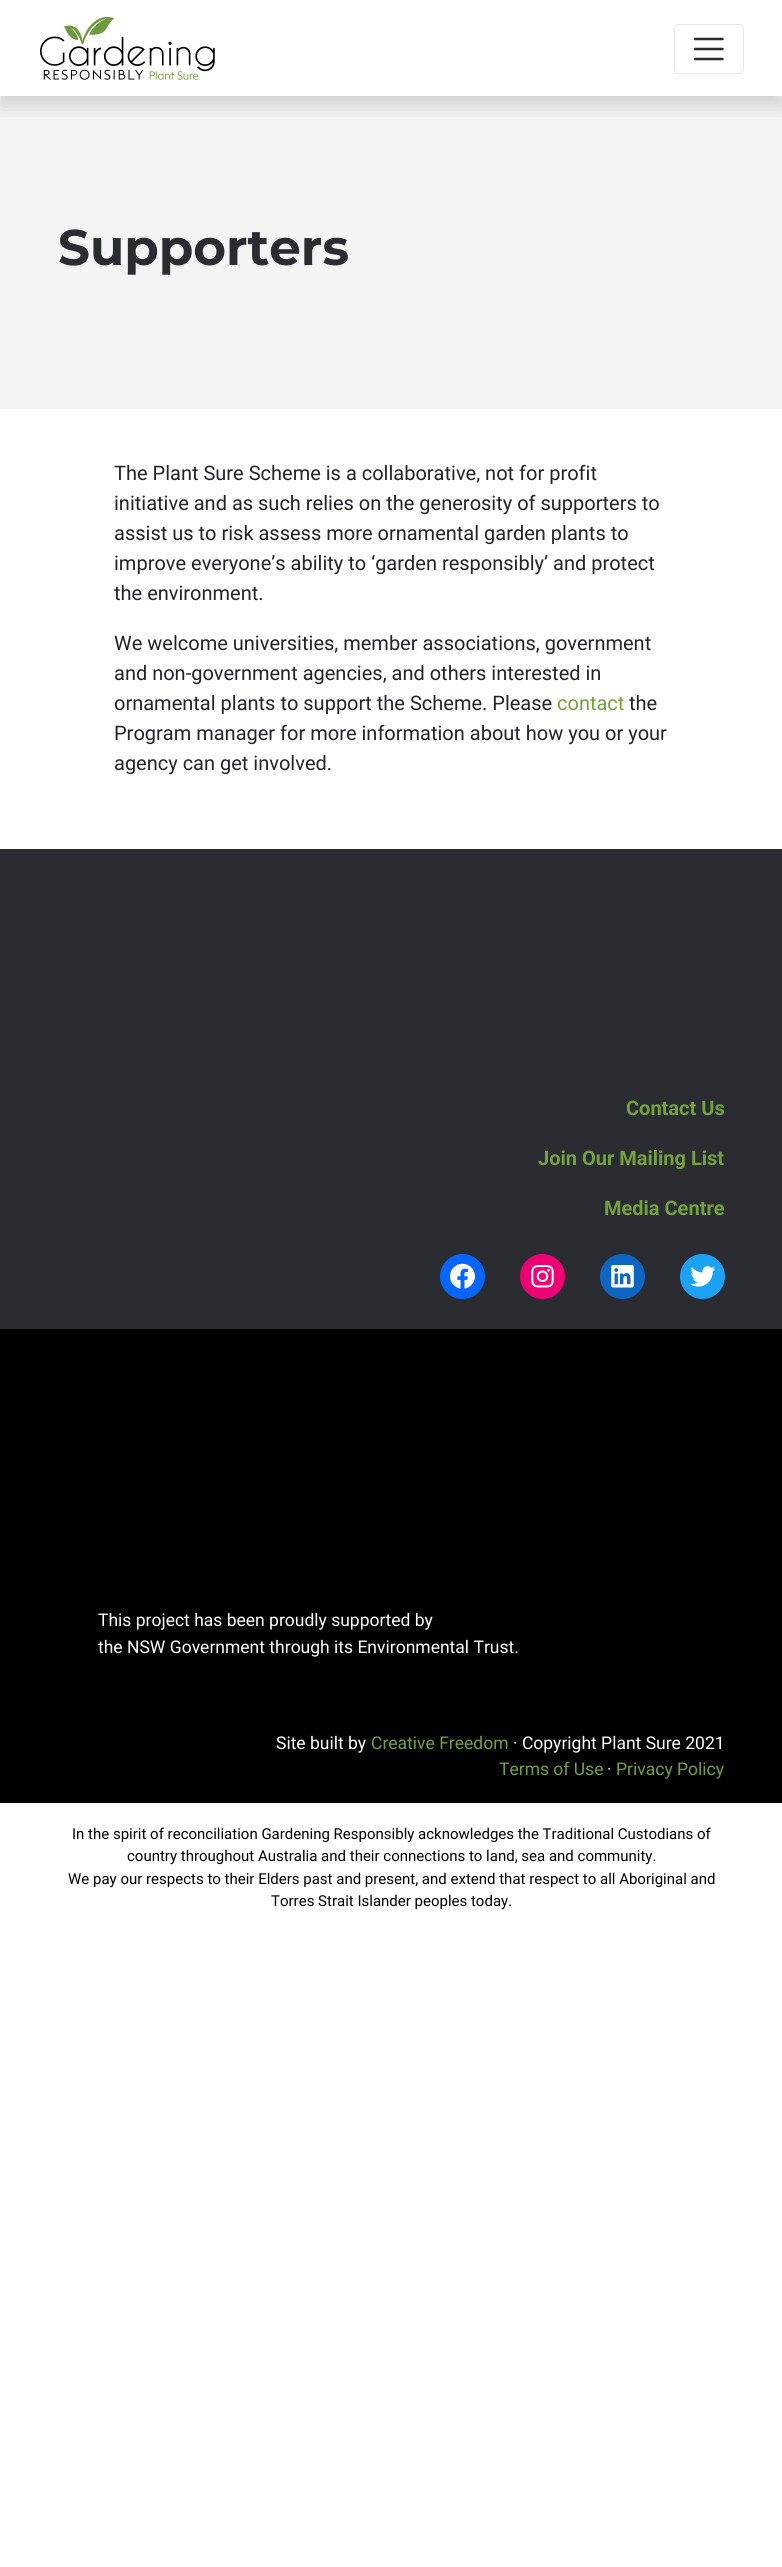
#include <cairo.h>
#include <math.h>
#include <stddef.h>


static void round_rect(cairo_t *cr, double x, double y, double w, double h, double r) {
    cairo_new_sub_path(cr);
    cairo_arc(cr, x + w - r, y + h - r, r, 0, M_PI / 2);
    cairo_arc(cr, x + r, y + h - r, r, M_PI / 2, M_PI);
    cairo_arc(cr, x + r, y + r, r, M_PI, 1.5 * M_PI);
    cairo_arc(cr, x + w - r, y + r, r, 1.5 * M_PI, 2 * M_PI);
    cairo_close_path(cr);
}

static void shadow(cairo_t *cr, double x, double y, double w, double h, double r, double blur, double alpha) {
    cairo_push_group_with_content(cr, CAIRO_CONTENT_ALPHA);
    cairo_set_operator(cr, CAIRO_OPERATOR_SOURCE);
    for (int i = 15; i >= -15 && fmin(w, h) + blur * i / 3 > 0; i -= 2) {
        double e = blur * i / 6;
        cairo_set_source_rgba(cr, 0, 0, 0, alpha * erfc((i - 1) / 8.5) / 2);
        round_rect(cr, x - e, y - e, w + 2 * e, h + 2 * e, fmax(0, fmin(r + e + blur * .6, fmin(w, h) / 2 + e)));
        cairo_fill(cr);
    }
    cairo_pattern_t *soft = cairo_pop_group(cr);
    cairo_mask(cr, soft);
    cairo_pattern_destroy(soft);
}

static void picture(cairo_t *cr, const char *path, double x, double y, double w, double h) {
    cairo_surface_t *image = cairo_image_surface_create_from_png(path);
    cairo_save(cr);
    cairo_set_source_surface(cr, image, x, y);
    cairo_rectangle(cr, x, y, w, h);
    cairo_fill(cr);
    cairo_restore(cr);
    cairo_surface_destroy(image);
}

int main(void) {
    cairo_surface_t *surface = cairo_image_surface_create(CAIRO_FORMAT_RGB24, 782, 2567);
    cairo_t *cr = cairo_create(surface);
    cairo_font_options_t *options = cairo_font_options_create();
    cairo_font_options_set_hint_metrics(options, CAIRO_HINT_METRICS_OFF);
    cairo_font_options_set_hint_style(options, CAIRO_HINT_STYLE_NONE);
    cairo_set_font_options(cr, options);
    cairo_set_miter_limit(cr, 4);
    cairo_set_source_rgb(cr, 1, 1, 1);
    cairo_paint(cr);
    cairo_set_source_rgb(cr, 0.957, 0.957, 0.957);
    cairo_rectangle(cr, 0, 96, 782, 313);
    cairo_fill(cr);
    cairo_save(cr);
    cairo_rectangle(cr, 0, 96, 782, 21);
    cairo_clip(cr);
    cairo_set_source_rgb(cr, 0, 0, 0);
    shadow(cr, 0, 10, 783, 96, 0, 10, 0.15);
    cairo_restore(cr);
    picture(cr, "img1.png", 40, 16, 175, 64);
    round_rect(cr, 674.5, 24.5, 69, 49, 4.5);
    cairo_set_source_rgb(cr, 0.902, 0.902, 0.902);
    cairo_set_line_width(cr, 1);
    cairo_stroke(cr);
    cairo_new_path(cr);
    cairo_move_to(cr, 695, 39);
    cairo_line_to(cr, 722.5, 39);
    cairo_move_to(cr, 695, 49);
    cairo_line_to(cr, 722.5, 49);
    cairo_move_to(cr, 695, 59);
    cairo_line_to(cr, 722.5, 59);
    cairo_set_source_rgb(cr, 0.169, 0.169, 0.196);
    cairo_set_line_width(cr, 2.5);
    cairo_set_line_cap(cr, CAIRO_LINE_CAP_ROUND);
    cairo_stroke(cr);
    cairo_select_font_face(cr, "Montserrat Thin", CAIRO_FONT_SLANT_NORMAL, CAIRO_FONT_WEIGHT_NORMAL);
    cairo_set_font_size(cr, 50);
    cairo_move_to(cr, 58, 265);
    cairo_show_text(cr, "Supporters");
    cairo_select_font_face(cr, "Roboto", CAIRO_FONT_SLANT_NORMAL, CAIRO_FONT_WEIGHT_NORMAL);
    cairo_set_font_size(cr, 20);
    cairo_set_source_rgb(cr, 0.129, 0.145, 0.161);
    cairo_move_to(cr, 114, 480);
    cairo_show_text(cr, "The Plant Sure Scheme is a collaborative, not for profit");
    cairo_move_to(cr, 114, 510);
    cairo_show_text(cr, "initiative and as such relies on the generosity of supporters to");
    cairo_move_to(cr, 114, 540);
    cairo_show_text(cr, "assist us to risk assess more ornamental garden plants to");
    cairo_move_to(cr, 114, 570);
    cairo_show_text(cr, "improve everyone’s ability to ‘garden responsibly’ and protect");
    cairo_move_to(cr, 114, 600);
    cairo_show_text(cr, "the environment.");
    cairo_move_to(cr, 114, 650);
    cairo_show_text(cr, "We welcome universities, member associations, government");
    cairo_move_to(cr, 114, 680);
    cairo_show_text(cr, "and non-government agencies, and others interested in");
    cairo_move_to(cr, 114, 710);
    cairo_show_text(cr, "ornamental plants to support the Scheme. Please");
    cairo_set_source_rgb(cr, 0.451, 0.631, 0.247);
    cairo_move_to(cr, 557, 710);
    cairo_show_text(cr, "contact");
    cairo_set_source_rgb(cr, 0.129, 0.145, 0.161);
    cairo_move_to(cr, 629, 710);
    cairo_show_text(cr, "the");
    cairo_move_to(cr, 114, 740);
    cairo_show_text(cr, "Program manager for more information about how you or your");
    cairo_move_to(cr, 114, 770);
    cairo_show_text(cr, "agency can get involved.");
    cairo_set_source_rgb(cr, 0.169, 0.169, 0.196);
    cairo_rectangle(cr, 0, 849, 782, 480);
    cairo_fill(cr);
    cairo_select_font_face(cr, "Roboto", CAIRO_FONT_SLANT_NORMAL, CAIRO_FONT_WEIGHT_BOLD);
    cairo_set_source_rgb(cr, 0.451, 0.631, 0.247);
    cairo_move_to(cr, 626, 1115);
    cairo_show_text(cr, "Contact Us");
    cairo_move_to(cr, 538, 1165);
    cairo_show_text(cr, "Join Our Mailing List");
    cairo_move_to(cr, 604, 1215);
    cairo_show_text(cr, "Media Centre");
    cairo_set_source_rgb(cr, 0.031, 0.4, 1);
    cairo_new_path(cr);
    cairo_arc(cr, 462.5, 1276.5, 22.5, 0, 2 * M_PI);
    cairo_fill(cr);
    picture(cr, "img2.png", 450, 1263, 25, 26);
    cairo_set_source_rgb(cr, 0.941, 0, 0.459);
    cairo_arc(cr, 542.5, 1276.5, 22.5, 0, 2 * M_PI);
    cairo_fill(cr);
    picture(cr, "img3.png", 531, 1265, 23, 23);
    cairo_set_source_rgb(cr, 0.051, 0.4, 0.761);
    cairo_arc(cr, 622.5, 1276.5, 22.5, 0, 2 * M_PI);
    cairo_fill(cr);
    picture(cr, "img4.png", 611, 1265, 23, 23);
    cairo_set_source_rgb(cr, 0.114, 0.631, 0.949);
    cairo_arc(cr, 702.5, 1276.5, 22.5, 0, 2 * M_PI);
    cairo_fill(cr);
    picture(cr, "img5.png", 690, 1266, 26, 21);
    cairo_set_source_rgb(cr, 0, 0, 0);
    cairo_rectangle(cr, 0, 1329, 782, 474);
    cairo_fill(cr);
    cairo_select_font_face(cr, "Roboto", CAIRO_FONT_SLANT_NORMAL, CAIRO_FONT_WEIGHT_NORMAL);
    cairo_set_font_size(cr, 17.5);
    cairo_set_source_rgb(cr, 1, 1, 1);
    cairo_move_to(cr, 98, 1626);
    cairo_show_text(cr, "This project has been proudly supported by");
    cairo_move_to(cr, 98, 1653);
    cairo_show_text(cr, "the NSW Government through its Environmental Trust.");
    cairo_move_to(cr, 276, 1749);
    cairo_show_text(cr, "Site built by");
    cairo_set_source_rgb(cr, 0.451, 0.631, 0.247);
    cairo_move_to(cr, 371, 1749);
    cairo_show_text(cr, "Creative Freedom");
    cairo_set_source_rgb(cr, 1, 1, 1);
    cairo_move_to(cr, 513, 1749);
    cairo_show_text(cr, "· Copyright Plant Sure 2021");
    cairo_set_source_rgb(cr, 0.451, 0.631, 0.247);
    cairo_move_to(cr, 499, 1775);
    cairo_show_text(cr, "Terms of Use");
    cairo_set_source_rgb(cr, 1, 1, 1);
    cairo_move_to(cr, 607, 1775);
    cairo_show_text(cr, "·");
    cairo_set_source_rgb(cr, 0.451, 0.631, 0.247);
    cairo_move_to(cr, 616, 1775);
    cairo_show_text(cr, "Privacy Policy");
    cairo_set_font_size(cr, 15);
    cairo_set_source_rgb(cr, 0, 0, 0);
    cairo_move_to(cr, 72, 1839);
    cairo_show_text(cr, "In the spirit of reconciliation Gardening Responsibly acknowledges the Traditional Custodians of");
    cairo_move_to(cr, 127, 1861);
    cairo_show_text(cr, "country throughout Australia and their connections to land, sea and community.");
    cairo_move_to(cr, 68, 1884);
    cairo_show_text(cr, "We pay our respects to their Elders past and present, and extend that respect to all Aboriginal and");
    cairo_move_to(cr, 271, 1906);
    cairo_show_text(cr, "Torres Strait Islander peoples today.");
    cairo_surface_write_to_png(surface, "page.png");
    cairo_font_options_destroy(options);
    cairo_destroy(cr);
    cairo_surface_destroy(surface);
    return 0;
}
